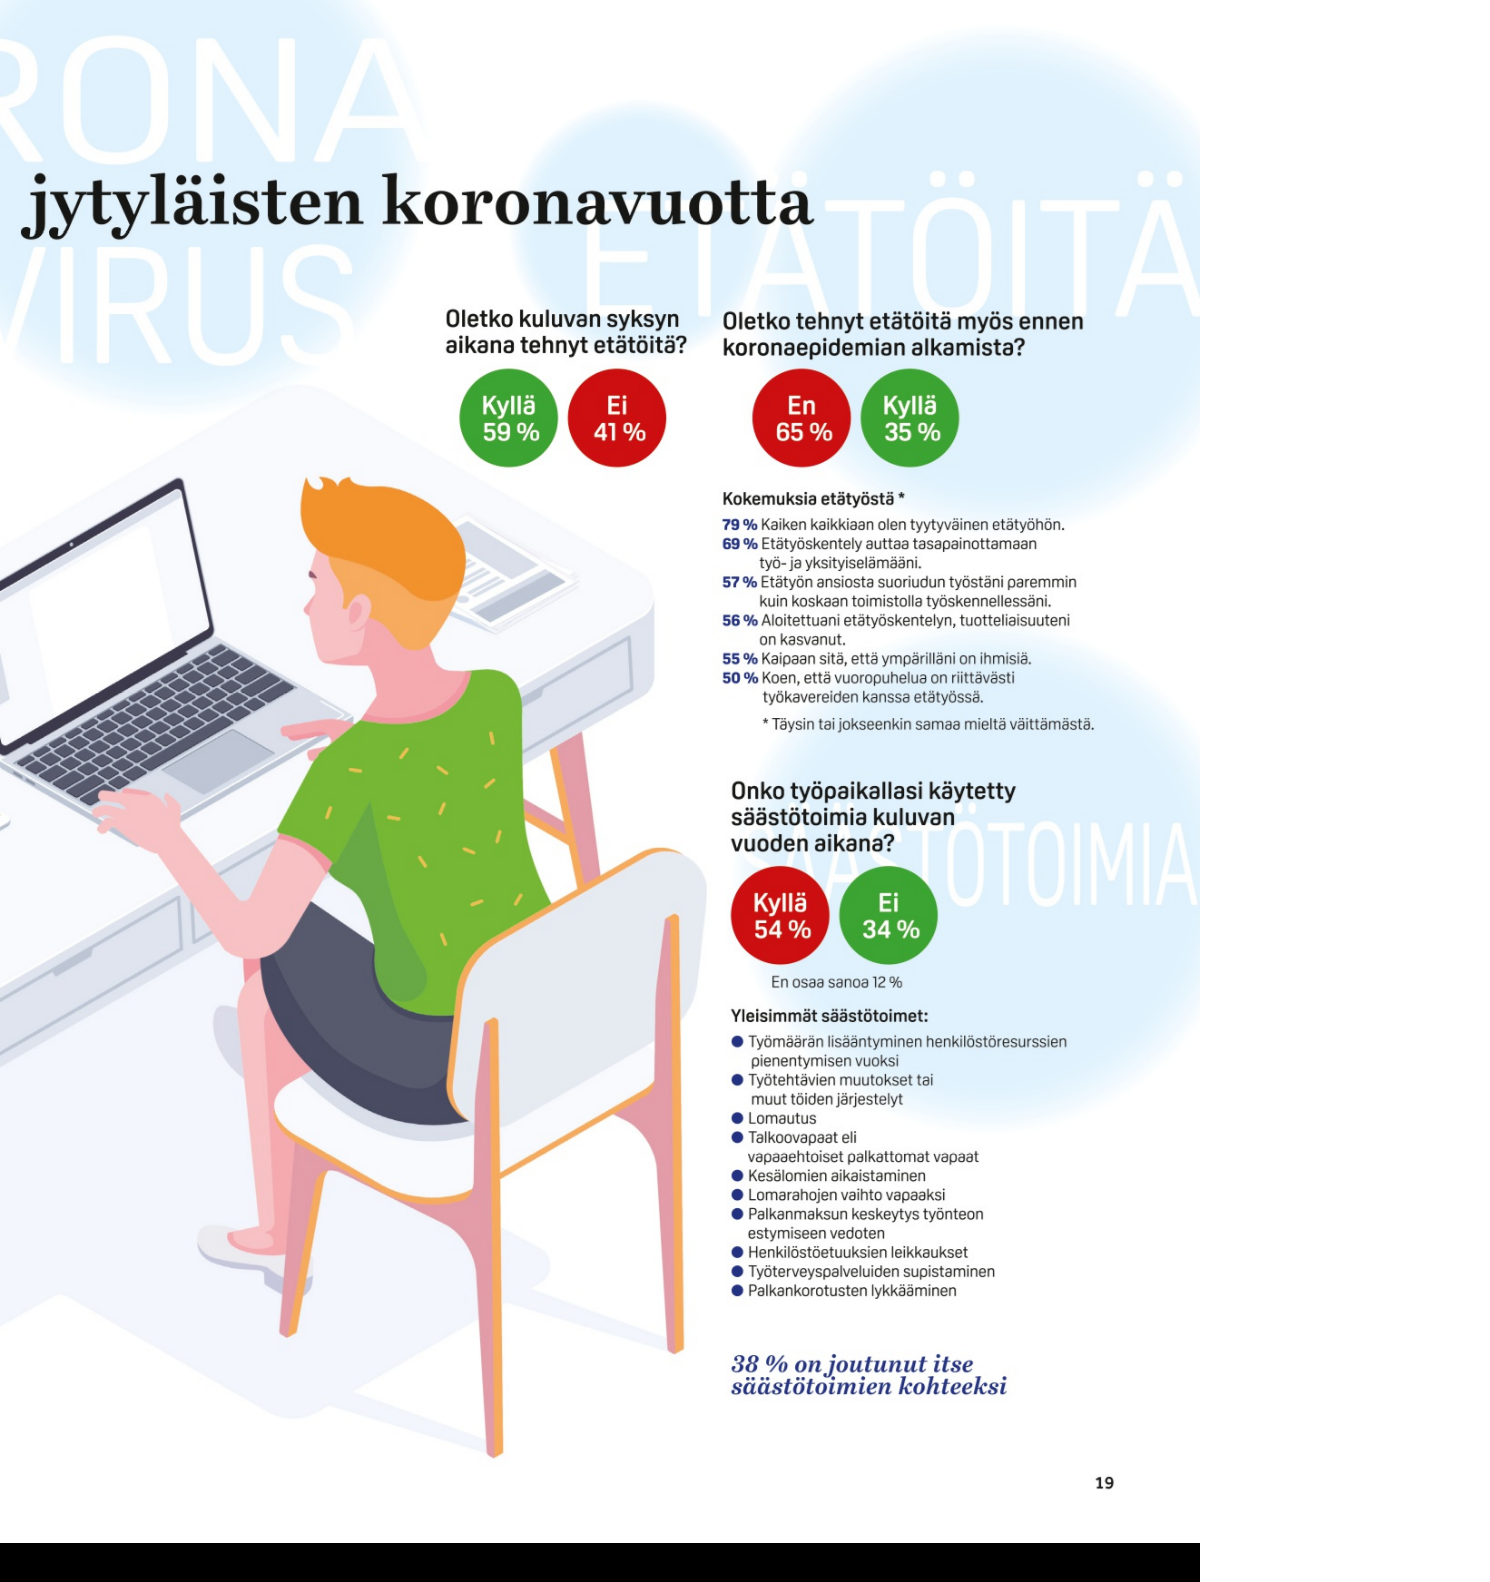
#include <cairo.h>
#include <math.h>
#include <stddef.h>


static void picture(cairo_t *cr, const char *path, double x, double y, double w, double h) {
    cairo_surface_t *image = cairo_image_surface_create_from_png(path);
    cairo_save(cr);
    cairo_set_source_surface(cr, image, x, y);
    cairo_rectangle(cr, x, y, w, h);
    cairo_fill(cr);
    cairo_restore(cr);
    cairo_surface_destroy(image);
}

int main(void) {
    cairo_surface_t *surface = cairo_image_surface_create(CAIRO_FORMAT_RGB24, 1490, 1582);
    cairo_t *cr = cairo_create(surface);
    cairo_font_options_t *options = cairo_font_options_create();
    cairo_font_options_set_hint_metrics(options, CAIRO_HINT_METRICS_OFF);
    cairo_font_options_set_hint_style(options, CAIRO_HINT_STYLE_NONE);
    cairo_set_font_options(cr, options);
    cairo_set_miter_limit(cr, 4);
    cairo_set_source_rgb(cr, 1, 1, 1);
    cairo_paint(cr);
    cairo_set_source_rgb(cr, 0, 0, 0);
    cairo_rectangle(cr, 0, 1543, 1200, 39);
    cairo_fill(cr);
    picture(cr, "img1.png", 0, 0, 1200, 1543);
    cairo_surface_write_to_png(surface, "page.png");
    cairo_font_options_destroy(options);
    cairo_destroy(cr);
    cairo_surface_destroy(surface);
    return 0;
}
